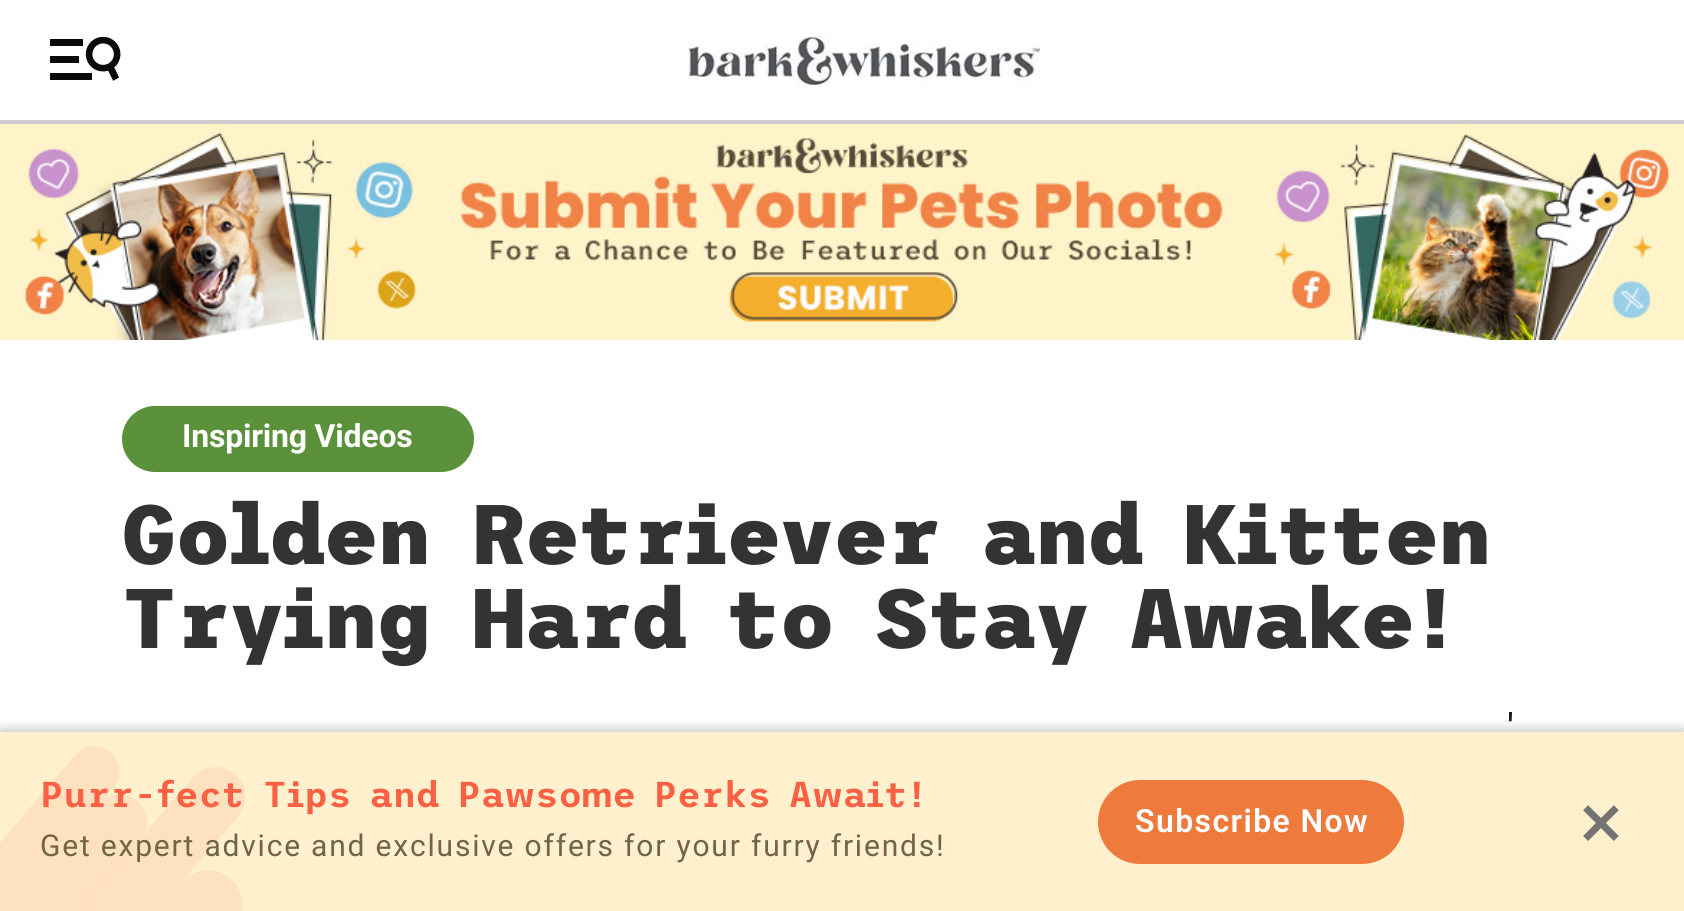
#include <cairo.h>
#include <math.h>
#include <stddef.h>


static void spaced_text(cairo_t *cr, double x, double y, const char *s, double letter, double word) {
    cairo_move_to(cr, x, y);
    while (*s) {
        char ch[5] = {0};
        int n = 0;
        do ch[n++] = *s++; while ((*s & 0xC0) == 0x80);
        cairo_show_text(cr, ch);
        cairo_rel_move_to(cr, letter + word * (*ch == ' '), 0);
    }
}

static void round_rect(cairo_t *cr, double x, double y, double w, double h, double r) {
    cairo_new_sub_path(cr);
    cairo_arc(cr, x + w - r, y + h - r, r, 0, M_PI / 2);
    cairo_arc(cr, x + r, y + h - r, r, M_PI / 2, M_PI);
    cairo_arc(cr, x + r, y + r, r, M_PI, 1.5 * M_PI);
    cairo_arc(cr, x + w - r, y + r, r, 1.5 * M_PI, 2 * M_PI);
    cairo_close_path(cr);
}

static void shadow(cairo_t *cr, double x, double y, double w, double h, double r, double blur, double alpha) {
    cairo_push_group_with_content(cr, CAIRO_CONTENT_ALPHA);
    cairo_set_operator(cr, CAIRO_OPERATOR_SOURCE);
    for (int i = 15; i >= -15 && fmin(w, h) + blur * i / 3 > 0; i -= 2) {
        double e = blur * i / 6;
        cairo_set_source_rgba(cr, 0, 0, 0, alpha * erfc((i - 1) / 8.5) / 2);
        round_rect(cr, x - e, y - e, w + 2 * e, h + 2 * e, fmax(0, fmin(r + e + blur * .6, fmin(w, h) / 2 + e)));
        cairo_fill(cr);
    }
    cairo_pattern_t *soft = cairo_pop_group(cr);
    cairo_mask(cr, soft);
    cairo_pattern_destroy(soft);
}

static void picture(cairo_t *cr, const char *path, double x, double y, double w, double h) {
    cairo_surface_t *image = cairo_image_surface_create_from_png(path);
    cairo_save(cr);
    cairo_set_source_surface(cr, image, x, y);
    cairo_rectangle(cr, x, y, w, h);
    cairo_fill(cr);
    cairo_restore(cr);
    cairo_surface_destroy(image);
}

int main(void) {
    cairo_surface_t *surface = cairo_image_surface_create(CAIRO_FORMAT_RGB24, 1684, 911);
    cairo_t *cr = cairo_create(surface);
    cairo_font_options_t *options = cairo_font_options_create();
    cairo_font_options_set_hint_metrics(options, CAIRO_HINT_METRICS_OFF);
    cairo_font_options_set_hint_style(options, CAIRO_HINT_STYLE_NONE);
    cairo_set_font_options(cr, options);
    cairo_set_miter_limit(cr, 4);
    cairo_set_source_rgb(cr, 1, 1, 1);
    cairo_paint(cr);
    cairo_set_source_rgb(cr, 0.8, 0.8, 0.8);
    cairo_rectangle(cr, 0, 120, 1684, 4);
    cairo_fill(cr);
    picture(cr, "img1.png", 50, 36, 71, 45);
    picture(cr, "img2.png", 688, 36, 352, 49);
    picture(cr, "img3.png", 0, 124, 1684, 216);
    cairo_set_source_rgb(cr, 0.361, 0.569, 0.231);
    round_rect(cr, 122, 406, 352, 66, 33);
    cairo_fill(cr);
    cairo_select_font_face(cr, "Roboto", CAIRO_FONT_SLANT_NORMAL, CAIRO_FONT_WEIGHT_BOLD);
    cairo_set_font_size(cr, 32);
    cairo_set_source_rgb(cr, 1, 1, 1);
    spaced_text(cr, 182, 447, "Inspiring Videos", -0.2, 0);
    cairo_select_font_face(cr, "Trispace ExtraBold", CAIRO_FONT_SLANT_NORMAL, CAIRO_FONT_WEIGHT_NORMAL);
    cairo_set_font_size(cr, 84.25);
    cairo_set_source_rgb(cr, 0.2, 0.2, 0.2);
    spaced_text(cr, 122, 564, "Golden Retriever and Kitten", -1.25, 0);
    spaced_text(cr, 122, 648, "Trying Hard to Stay Awake!", -1.25, 0);
    cairo_select_font_face(cr, "Roboto", CAIRO_FONT_SLANT_NORMAL, CAIRO_FONT_WEIGHT_NORMAL);
    cairo_set_font_size(cr, 40);
    cairo_set_source_rgb(cr, 0.082, 0.09, 0.102);
    cairo_move_to(cr, 1507, 742);
    cairo_show_text(cr, "'");
    cairo_set_source_rgb(cr, 0, 0, 0);
    shadow(cr, 0, 728, 1684, 180, 0, 5, 0.2);
    cairo_set_source_rgb(cr, 1, 0.945, 0.808);
    cairo_rectangle(cr, 0, 732, 1684, 179);
    cairo_fill(cr);
    picture(cr, "img4.png", 0, 746, 246, 165);
    cairo_select_font_face(cr, "Trispace SemiBold", CAIRO_FONT_SLANT_NORMAL, CAIRO_FONT_WEIGHT_NORMAL);
    cairo_set_font_size(cr, 36);
    cairo_set_source_rgb(cr, 0.98, 0.376, 0.267);
    cairo_move_to(cr, 40, 807);
    cairo_show_text(cr, "Purr-fect Tips and Pawsome Perks Await!");
    cairo_select_font_face(cr, "Roboto", CAIRO_FONT_SLANT_NORMAL, CAIRO_FONT_WEIGHT_NORMAL);
    cairo_set_font_size(cr, 30);
    cairo_set_source_rgb(cr, 0.447, 0.396, 0.271);
    spaced_text(cr, 40, 856, "Get expert advice and exclusive offers for your furry friends!", 1.8, 0);
    cairo_set_source_rgb(cr, 0.933, 0.478, 0.235);
    round_rect(cr, 1098, 780, 306, 84, 42);
    cairo_fill(cr);
    cairo_select_font_face(cr, "Roboto SemiBold", CAIRO_FONT_SLANT_NORMAL, CAIRO_FONT_WEIGHT_NORMAL);
    cairo_set_font_size(cr, 32);
    cairo_set_source_rgb(cr, 1, 1, 1);
    spaced_text(cr, 1135, 832, "Subscribe Now", 1.4, 0);
    picture(cr, "img5.png", 1583, 805, 36, 36);
    cairo_surface_write_to_png(surface, "page.png");
    cairo_font_options_destroy(options);
    cairo_destroy(cr);
    cairo_surface_destroy(surface);
    return 0;
}
